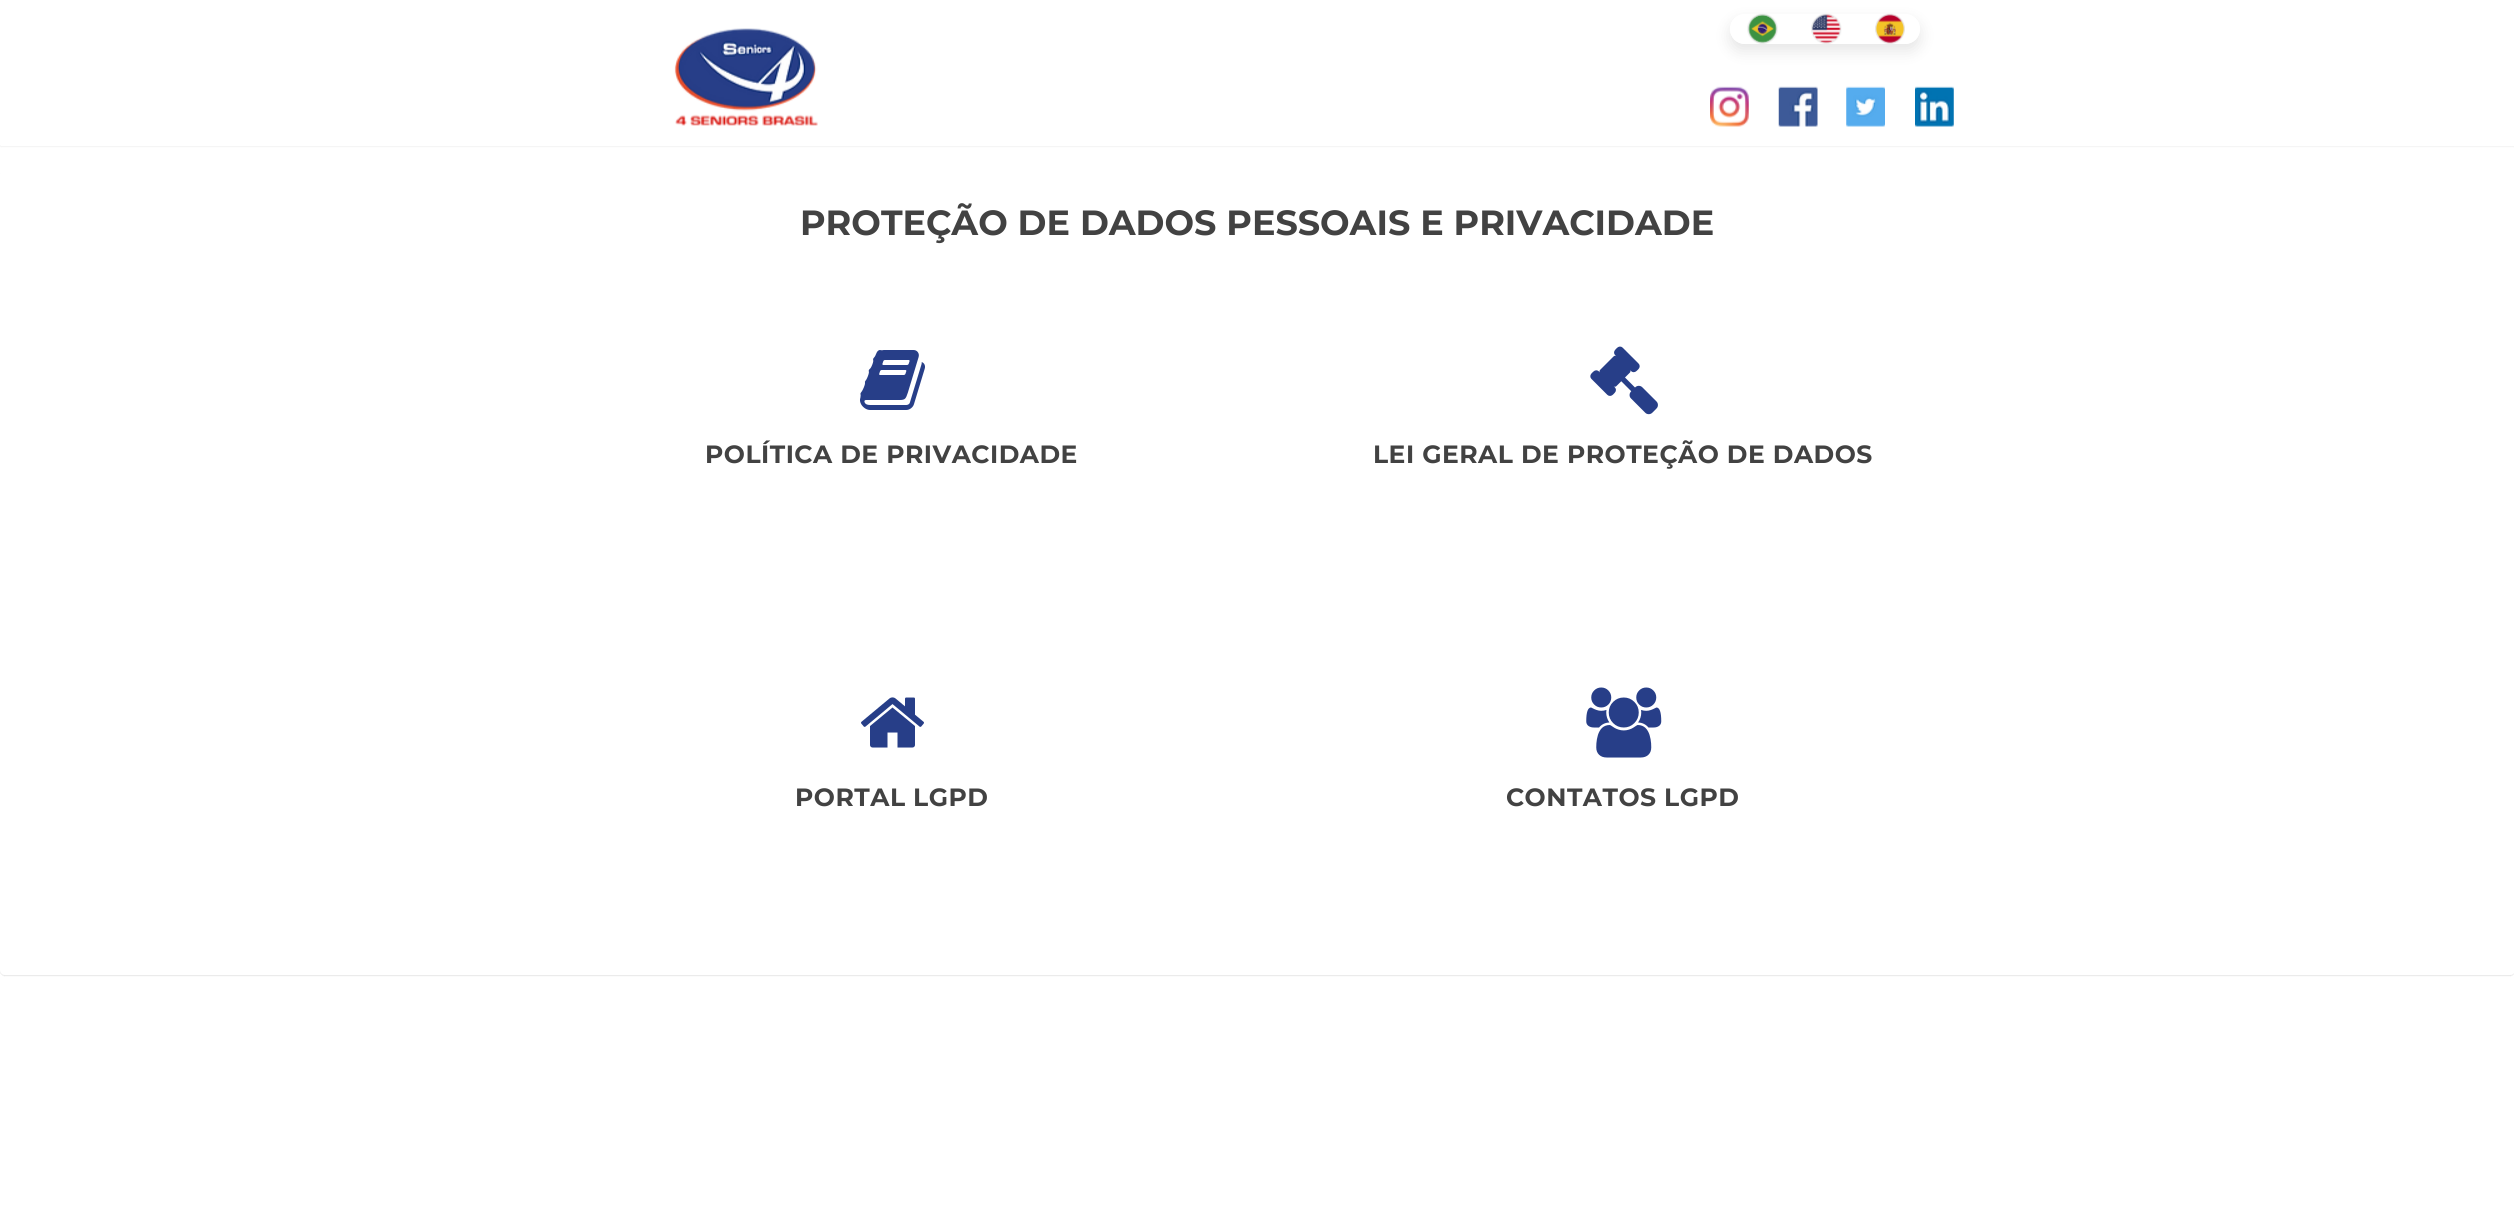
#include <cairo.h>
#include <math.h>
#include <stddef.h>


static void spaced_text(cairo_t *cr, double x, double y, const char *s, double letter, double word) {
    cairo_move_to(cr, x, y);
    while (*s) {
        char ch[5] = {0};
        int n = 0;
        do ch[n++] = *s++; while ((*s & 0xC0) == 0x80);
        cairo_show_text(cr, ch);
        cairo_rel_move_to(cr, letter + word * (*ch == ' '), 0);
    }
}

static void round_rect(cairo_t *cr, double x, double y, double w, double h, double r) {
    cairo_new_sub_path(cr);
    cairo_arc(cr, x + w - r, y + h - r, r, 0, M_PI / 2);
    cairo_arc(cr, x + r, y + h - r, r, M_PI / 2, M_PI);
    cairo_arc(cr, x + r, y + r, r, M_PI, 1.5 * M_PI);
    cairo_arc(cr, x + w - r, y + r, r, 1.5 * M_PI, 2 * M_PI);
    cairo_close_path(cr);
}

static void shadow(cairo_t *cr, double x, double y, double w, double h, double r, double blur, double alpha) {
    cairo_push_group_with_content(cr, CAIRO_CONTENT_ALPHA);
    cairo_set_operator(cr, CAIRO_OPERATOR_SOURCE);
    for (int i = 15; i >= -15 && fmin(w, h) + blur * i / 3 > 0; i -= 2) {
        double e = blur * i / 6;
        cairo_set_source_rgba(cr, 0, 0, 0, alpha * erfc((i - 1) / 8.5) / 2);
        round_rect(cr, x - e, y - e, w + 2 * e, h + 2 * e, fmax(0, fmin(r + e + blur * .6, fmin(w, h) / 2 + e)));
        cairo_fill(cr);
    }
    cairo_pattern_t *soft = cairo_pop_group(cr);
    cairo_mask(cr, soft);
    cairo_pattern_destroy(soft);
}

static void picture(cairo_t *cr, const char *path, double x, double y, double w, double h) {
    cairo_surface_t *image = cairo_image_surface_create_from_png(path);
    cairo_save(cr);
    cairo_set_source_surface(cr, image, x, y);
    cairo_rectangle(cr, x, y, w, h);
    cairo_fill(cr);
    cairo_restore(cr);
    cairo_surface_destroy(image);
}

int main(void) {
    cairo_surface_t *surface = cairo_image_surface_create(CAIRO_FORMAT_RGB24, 2514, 1206);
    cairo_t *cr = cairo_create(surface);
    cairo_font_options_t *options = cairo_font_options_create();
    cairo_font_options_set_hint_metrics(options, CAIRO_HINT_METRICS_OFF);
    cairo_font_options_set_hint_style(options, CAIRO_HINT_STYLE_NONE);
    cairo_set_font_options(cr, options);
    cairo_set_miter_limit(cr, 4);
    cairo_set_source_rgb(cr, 1, 1, 1);
    cairo_paint(cr);
    picture(cr, "img1.png", 674, 28, 144, 98);
    cairo_set_source_rgb(cr, 0, 0, 0);
    shadow(cr, 1730, 21, 190, 30, 15, 7.5, 0.1);
    cairo_set_source_rgb(cr, 1, 1, 1);
    round_rect(cr, 1730, 14, 190, 30, 15);
    cairo_fill(cr);
    cairo_new_path(cr);
    cairo_move_to(cr, 1745, 14);
    cairo_line_to(cr, 1793, 14);
    cairo_line_to(cr, 1793, 44);
    cairo_line_to(cr, 1745, 44);
    cairo_curve_to(cr, 1736.5, 44, 1730, 37.5, 1730, 29);
    cairo_curve_to(cr, 1730, 20.5, 1736.5, 14, 1745, 14);
    cairo_close_path(cr);
    cairo_fill(cr);
    picture(cr, "img2.png", 1747, 13, 31, 31);
    picture(cr, "img3.png", 1811, 13, 31, 31);
    cairo_new_path(cr);
    cairo_move_to(cr, 1856, 14);
    cairo_line_to(cr, 1905, 14);
    cairo_curve_to(cr, 1913.5, 14, 1920, 20.5, 1920, 29);
    cairo_curve_to(cr, 1920, 37.5, 1913.5, 44, 1905, 44);
    cairo_line_to(cr, 1856, 44);
    cairo_close_path(cr);
    cairo_fill(cr);
    picture(cr, "img4.png", 1875, 13, 30, 31);
    picture(cr, "img5.png", 1710, 86, 39, 41);
    picture(cr, "img6.png", 1778, 86, 40, 41);
    picture(cr, "img7.png", 1846, 86, 39, 41);
    picture(cr, "img8.png", 1915, 86, 39, 41);
    cairo_set_source_rgb(cr, 0, 0, 0);
    shadow(cr, 0, 144, 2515, 832, 5, 0.5, 0.05);
    cairo_set_source_rgb(cr, 1, 1, 1);
    round_rect(cr, 0, 143, 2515, 832, 5);
    cairo_fill(cr);
    cairo_set_source_rgb(cr, 0, 0, 0);
    shadow(cr, 0, 144, 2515, 3, 1.5, 0.5, 0.05);
    cairo_set_source_rgb(cr, 1, 1, 1);
    round_rect(cr, 0, 143, 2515, 3, 1.5);
    cairo_fill(cr);
    cairo_set_source_rgb(cr, 0, 0, 0);
    shadow(cr, 0, 171, 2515, 805, 5, 0.5, 0.05);
    cairo_set_source_rgb(cr, 1, 1, 1);
    round_rect(cr, 0, 170, 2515, 805, 5);
    cairo_fill(cr);
    cairo_select_font_face(cr, "Montserrat", CAIRO_FONT_SLANT_NORMAL, CAIRO_FONT_WEIGHT_BOLD);
    cairo_set_font_size(cr, 35);
    cairo_set_source_rgb(cr, 0.259, 0.259, 0.259);
    cairo_move_to(cr, 800, 235);
    cairo_show_text(cr, "PROTEÇÃO DE DADOS PESSOAIS E PRIVACIDADE");
    picture(cr, "img9.png", 860, 350, 65, 60);
    cairo_set_font_size(cr, 25);
    spaced_text(cr, 705, 463, "POLÍTICA DE PRIVACIDADE", 0.5, 0);
    picture(cr, "img10.png", 1590, 346, 68, 69);
    spaced_text(cr, 1373, 463, "LEI GERAL DE PROTEÇÃO DE DADOS", 0.5, 0);
    picture(cr, "img11.png", 861, 697, 63, 51);
    spaced_text(cr, 795, 806, "PORTAL LGPD", 0.5, 0);
    picture(cr, "img12.png", 1586, 687, 76, 71);
    spaced_text(cr, 1506, 806, "CONTATOS LGPD", 0.5, 0);
    cairo_surface_write_to_png(surface, "page.png");
    cairo_font_options_destroy(options);
    cairo_destroy(cr);
    cairo_surface_destroy(surface);
    return 0;
}
